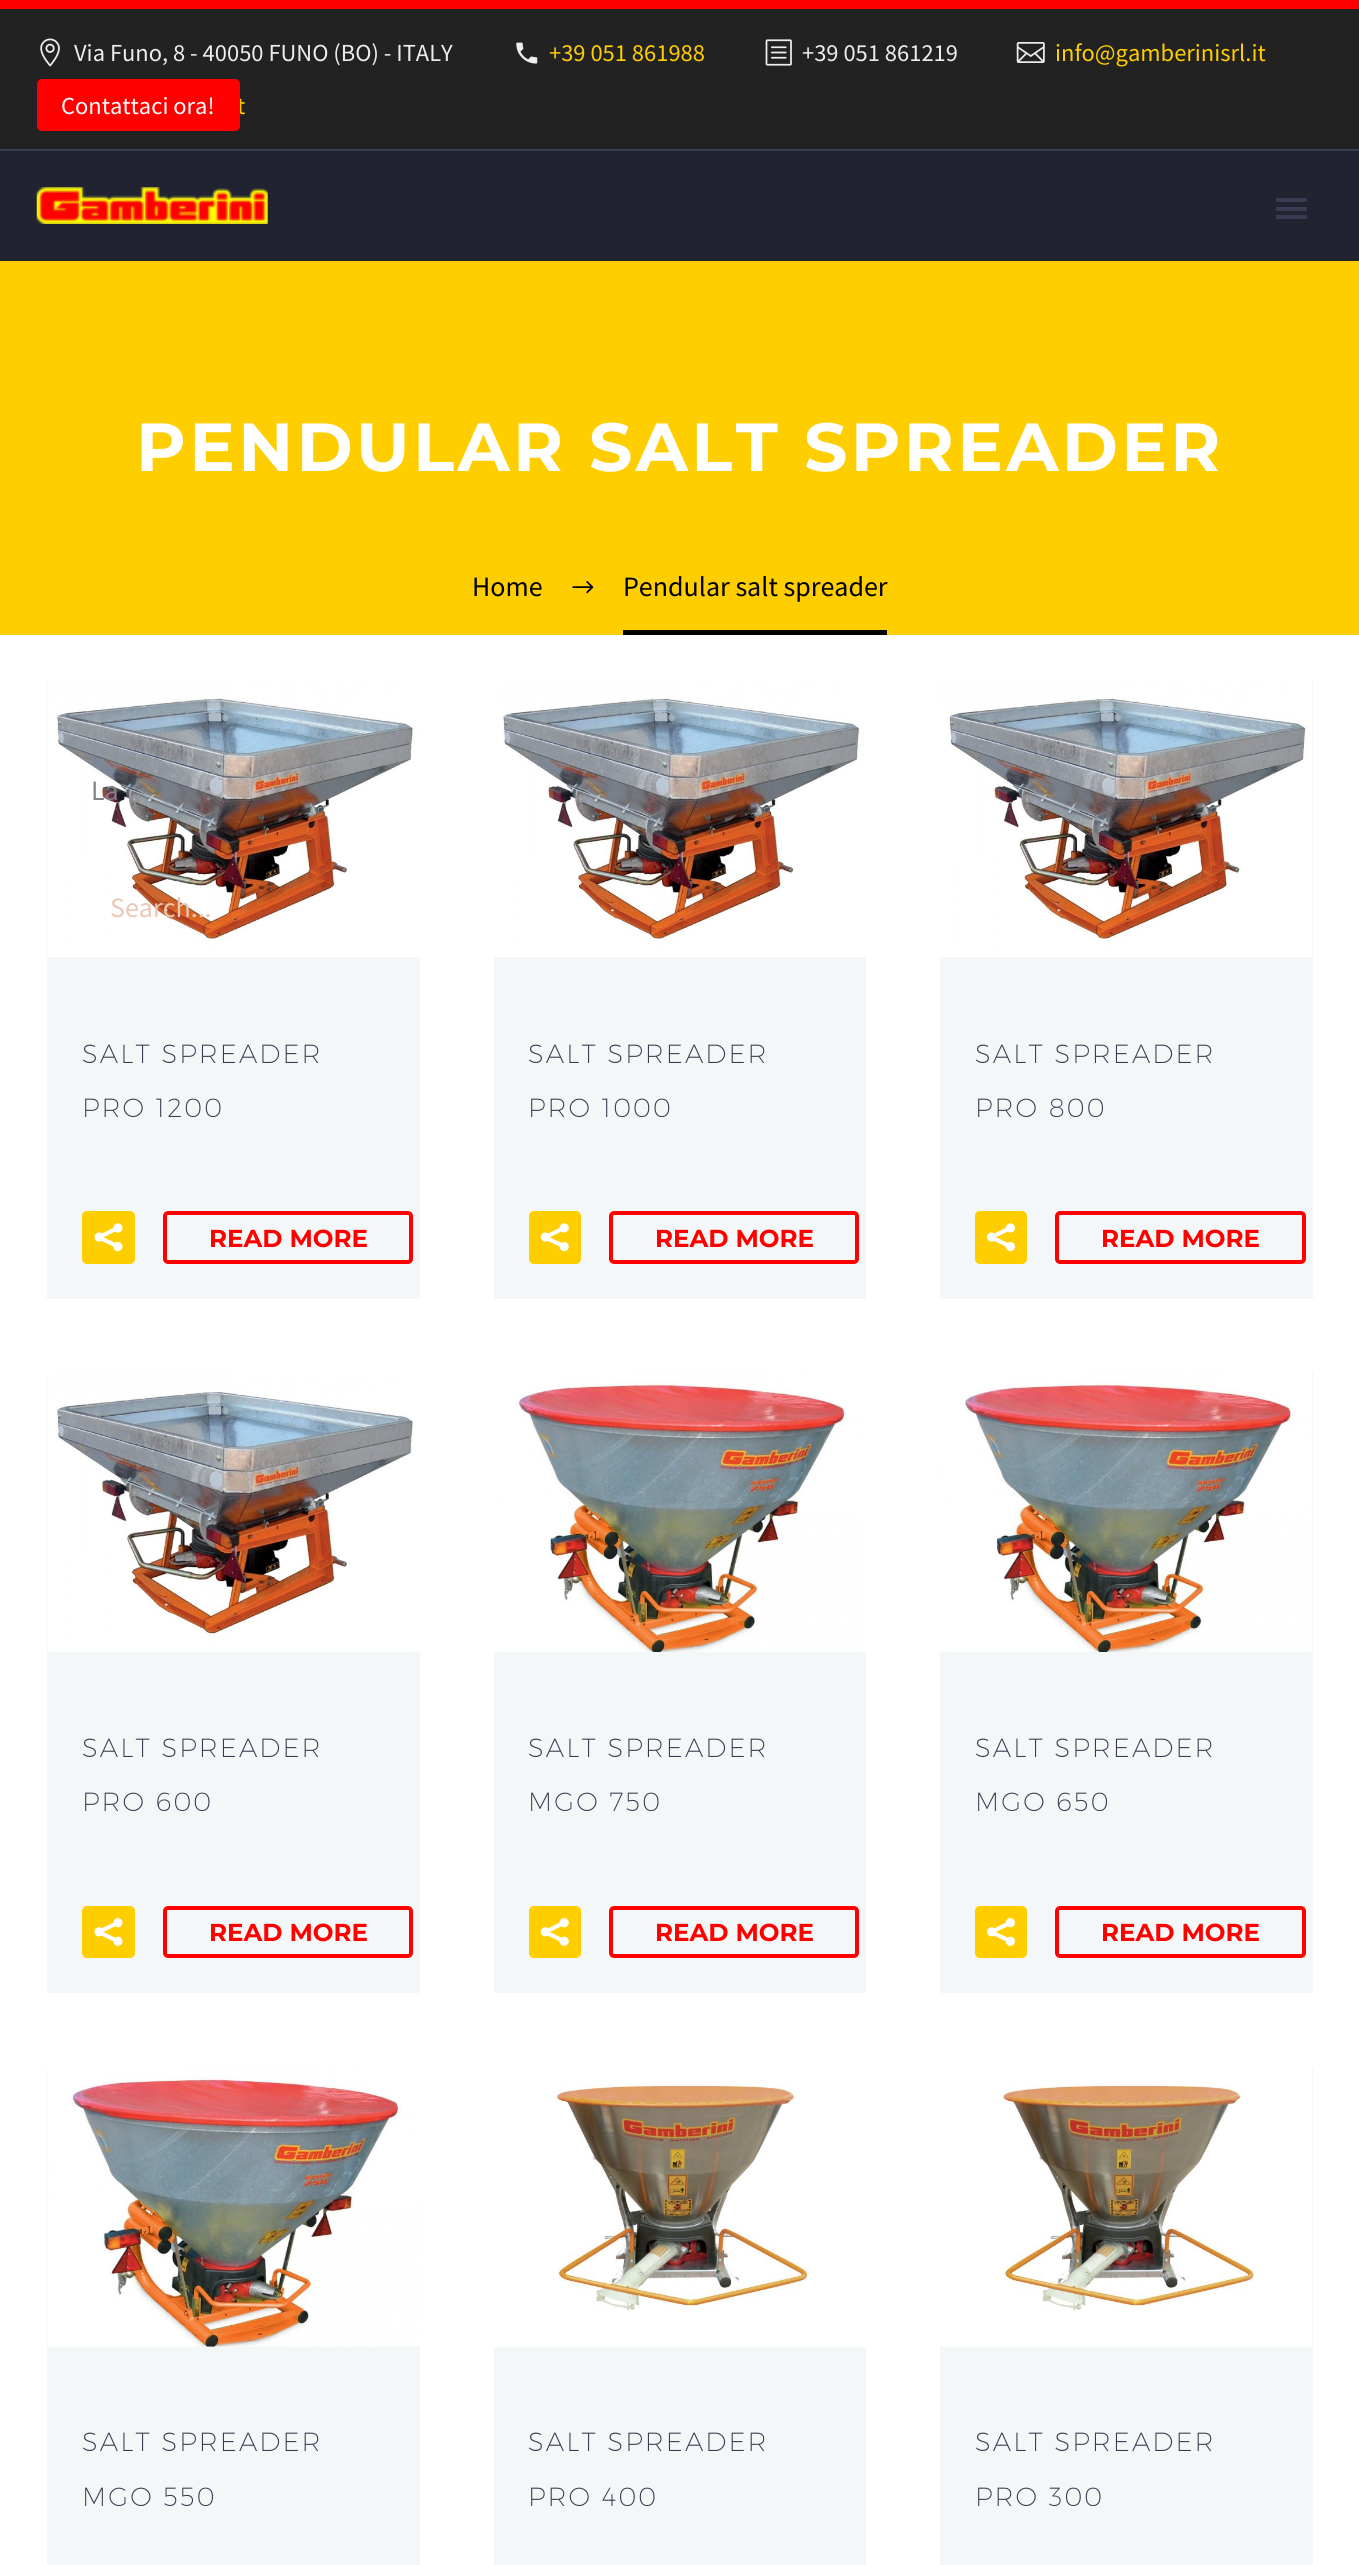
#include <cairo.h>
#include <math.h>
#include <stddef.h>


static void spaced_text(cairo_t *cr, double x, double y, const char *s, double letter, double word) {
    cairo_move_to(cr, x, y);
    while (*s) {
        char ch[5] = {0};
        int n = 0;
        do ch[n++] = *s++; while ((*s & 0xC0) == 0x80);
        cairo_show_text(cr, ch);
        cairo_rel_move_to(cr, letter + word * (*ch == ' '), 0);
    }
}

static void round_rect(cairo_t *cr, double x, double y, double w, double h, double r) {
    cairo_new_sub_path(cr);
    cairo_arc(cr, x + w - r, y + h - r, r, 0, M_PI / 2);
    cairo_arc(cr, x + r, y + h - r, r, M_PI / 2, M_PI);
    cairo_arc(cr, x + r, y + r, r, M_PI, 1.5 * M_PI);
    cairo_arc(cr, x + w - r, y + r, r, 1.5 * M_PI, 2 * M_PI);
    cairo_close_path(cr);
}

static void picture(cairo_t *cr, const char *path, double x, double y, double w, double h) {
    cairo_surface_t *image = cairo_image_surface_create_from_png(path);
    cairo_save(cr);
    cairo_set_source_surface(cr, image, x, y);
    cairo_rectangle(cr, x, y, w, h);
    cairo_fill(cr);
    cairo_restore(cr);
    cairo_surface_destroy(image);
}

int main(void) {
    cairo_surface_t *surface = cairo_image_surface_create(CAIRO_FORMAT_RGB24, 1359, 2565);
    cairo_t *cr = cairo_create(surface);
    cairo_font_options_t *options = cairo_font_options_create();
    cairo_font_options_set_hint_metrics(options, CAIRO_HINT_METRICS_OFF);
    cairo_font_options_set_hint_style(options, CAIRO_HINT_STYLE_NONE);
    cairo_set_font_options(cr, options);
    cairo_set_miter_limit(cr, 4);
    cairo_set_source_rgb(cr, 0.129, 0.137, 0.192);
    cairo_paint(cr);
    cairo_set_source_rgb(cr, 0.133, 0.133, 0.133);
    cairo_rectangle(cr, 0, 9, 1359, 140);
    cairo_fill(cr);
    cairo_set_source_rgb(cr, 1, 0, 0);
    cairo_rectangle(cr, 0, 0, 1359, 9);
    cairo_fill(cr);
    cairo_set_source_rgb(cr, 0.224, 0.239, 0.314);
    cairo_rectangle(cr, 0, 149, 1359, 2);
    cairo_fill(cr);
    picture(cr, "img1.png", 40, 38, 20, 29);
    cairo_select_font_face(cr, "Source Sans Pro", CAIRO_FONT_SLANT_NORMAL, CAIRO_FONT_WEIGHT_NORMAL);
    cairo_set_font_size(cr, 24.5);
    cairo_set_source_rgb(cr, 0.929, 0.929, 0.929);
    cairo_move_to(cr, 74, 61);
    cairo_show_text(cr, "Via Funo, 8 - 40050 FUNO (BO) - ITALY");
    picture(cr, "img2.png", 516, 42, 22, 22);
    cairo_set_source_rgb(cr, 1, 0.808, 0);
    cairo_move_to(cr, 549, 61);
    cairo_show_text(cr, "+39 051 861988");
    picture(cr, "img3.png", 765, 39, 27, 27);
    cairo_set_source_rgb(cr, 0.929, 0.929, 0.929);
    cairo_move_to(cr, 802, 61);
    cairo_show_text(cr, "+39 051 861219");
    picture(cr, "img4.png", 1016, 42, 29, 21);
    cairo_set_source_rgb(cr, 1, 0.808, 0);
    cairo_move_to(cr, 1055, 61);
    cairo_show_text(cr, "info@gamberinisrl.it");
    cairo_move_to(cr, 237, 114);
    cairo_show_text(cr, "t");
    cairo_set_source_rgb(cr, 1, 0, 0);
    round_rect(cr, 37, 79, 203, 52, 5);
    cairo_fill(cr);
    cairo_set_source_rgb(cr, 1, 1, 1);
    cairo_move_to(cr, 61, 114);
    cairo_show_text(cr, "Contattaci ora!");
    cairo_set_source_rgb(cr, 1, 0.808, 0);
    cairo_rectangle(cr, 0, 261, 1359, 374);
    cairo_fill(cr);
    cairo_select_font_face(cr, "Montserrat", CAIRO_FONT_SLANT_NORMAL, CAIRO_FONT_WEIGHT_BOLD);
    cairo_set_font_size(cr, 68);
    cairo_set_source_rgb(cr, 1, 1, 1);
    spaced_text(cr, 136, 471, "PENDULAR SALT SPREADER", 3.4, 0);
    cairo_select_font_face(cr, "Source Sans Pro", CAIRO_FONT_SLANT_NORMAL, CAIRO_FONT_WEIGHT_NORMAL);
    cairo_set_font_size(cr, 28);
    cairo_set_source_rgb(cr, 0, 0, 0);
    cairo_move_to(cr, 472, 596);
    cairo_show_text(cr, "Home");
    picture(cr, "img5.png", 572, 581, 22, 13);
    cairo_rectangle(cr, 623, 630, 264, 5);
    cairo_fill(cr);
    cairo_move_to(cr, 623, 596);
    cairo_show_text(cr, "Pendular salt spreader");
    cairo_set_source_rgb(cr, 1, 1, 1);
    cairo_rectangle(cr, 0, 635, 1359, 1930);
    cairo_fill(cr);
    cairo_set_source_rgb(cr, 0.957, 0.965, 0.969);
    cairo_rectangle(cr, 47, 679, 373, 620);
    cairo_fill(cr);
    picture(cr, "img6.png", 47, 679, 373, 278);
    cairo_select_font_face(cr, "Montserrat ExtraLight", CAIRO_FONT_SLANT_NORMAL, CAIRO_FONT_WEIGHT_NORMAL);
    cairo_set_font_size(cr, 26.25);
    cairo_set_source_rgb(cr, 0.235, 0.224, 0.314);
    spaced_text(cr, 82, 1063, "SALT SPREADER", 2.1, 0);
    spaced_text(cr, 82, 1117, "PRO 1200", 2.1, 0);
    cairo_set_source_rgb(cr, 1, 0.808, 0);
    round_rect(cr, 82, 1211, 53, 53, 5);
    cairo_fill(cr);
    picture(cr, "img7.png", 94, 1223, 29, 29);
    round_rect(cr, 165, 1213, 246, 49, 3);
    cairo_set_source_rgb(cr, 1, 0, 0);
    cairo_set_line_width(cr, 4);
    cairo_stroke(cr);
    cairo_select_font_face(cr, "Montserrat", CAIRO_FONT_SLANT_NORMAL, CAIRO_FONT_WEIGHT_BOLD);
    cairo_set_font_size(cr, 24.5);
    cairo_move_to(cr, 209, 1247);
    cairo_show_text(cr, "READ MORE");
    cairo_set_source_rgb(cr, 0.957, 0.965, 0.969);
    cairo_rectangle(cr, 494, 957, 372, 342);
    cairo_fill(cr);
    picture(cr, "img8.png", 494, 679, 372, 278);
    cairo_select_font_face(cr, "Montserrat ExtraLight", CAIRO_FONT_SLANT_NORMAL, CAIRO_FONT_WEIGHT_NORMAL);
    cairo_set_font_size(cr, 26.25);
    cairo_set_source_rgb(cr, 0.235, 0.224, 0.314);
    spaced_text(cr, 528, 1063, "SALT SPREADER", 2.1, 0);
    spaced_text(cr, 528, 1117, "PRO 1000", 2.1, 0);
    cairo_set_source_rgb(cr, 1, 0.808, 0);
    round_rect(cr, 529, 1211, 52, 53, 5);
    cairo_fill(cr);
    picture(cr, "img9.png", 540, 1223, 29, 29);
    round_rect(cr, 611, 1213, 246, 49, 3);
    cairo_set_source_rgb(cr, 1, 0, 0);
    cairo_stroke(cr);
    cairo_select_font_face(cr, "Montserrat", CAIRO_FONT_SLANT_NORMAL, CAIRO_FONT_WEIGHT_BOLD);
    cairo_set_font_size(cr, 24.5);
    cairo_move_to(cr, 655, 1247);
    cairo_show_text(cr, "READ MORE");
    cairo_set_source_rgb(cr, 0.957, 0.965, 0.969);
    cairo_rectangle(cr, 940, 679, 373, 620);
    cairo_fill(cr);
    picture(cr, "img10.png", 940, 679, 372, 278);
    cairo_select_font_face(cr, "Montserrat ExtraLight", CAIRO_FONT_SLANT_NORMAL, CAIRO_FONT_WEIGHT_NORMAL);
    cairo_set_font_size(cr, 26.25);
    cairo_set_source_rgb(cr, 0.235, 0.224, 0.314);
    spaced_text(cr, 975, 1063, "SALT SPREADER", 2.1, 0);
    spaced_text(cr, 975, 1117, "PRO 800", 2.1, 0);
    cairo_set_source_rgb(cr, 1, 0.808, 0);
    round_rect(cr, 975, 1211, 52, 53, 5);
    cairo_fill(cr);
    picture(cr, "img11.png", 987, 1223, 28, 29);
    round_rect(cr, 1057, 1213, 247, 49, 3);
    cairo_set_source_rgb(cr, 1, 0, 0);
    cairo_stroke(cr);
    cairo_select_font_face(cr, "Montserrat", CAIRO_FONT_SLANT_NORMAL, CAIRO_FONT_WEIGHT_BOLD);
    cairo_set_font_size(cr, 24.5);
    cairo_move_to(cr, 1101, 1247);
    cairo_show_text(cr, "READ MORE");
    cairo_set_source_rgb(cr, 0.957, 0.965, 0.969);
    cairo_rectangle(cr, 47, 1372, 373, 621);
    cairo_fill(cr);
    picture(cr, "img12.png", 47, 1372, 373, 280);
    cairo_select_font_face(cr, "Montserrat ExtraLight", CAIRO_FONT_SLANT_NORMAL, CAIRO_FONT_WEIGHT_NORMAL);
    cairo_set_font_size(cr, 26.25);
    cairo_set_source_rgb(cr, 0.235, 0.224, 0.314);
    spaced_text(cr, 82, 1757, "SALT SPREADER", 2.1, 0);
    spaced_text(cr, 82, 1811, "PRO 600", 2.1, 0);
    cairo_set_source_rgb(cr, 1, 0.808, 0);
    round_rect(cr, 82, 1906, 53, 52, 5);
    cairo_fill(cr);
    picture(cr, "img13.png", 94, 1918, 29, 28);
    round_rect(cr, 165, 1908, 246, 48, 3);
    cairo_set_source_rgb(cr, 1, 0, 0);
    cairo_stroke(cr);
    cairo_select_font_face(cr, "Montserrat", CAIRO_FONT_SLANT_NORMAL, CAIRO_FONT_WEIGHT_BOLD);
    cairo_set_font_size(cr, 24.5);
    cairo_move_to(cr, 209, 1941);
    cairo_show_text(cr, "READ MORE");
    cairo_set_source_rgb(cr, 0.957, 0.965, 0.969);
    cairo_rectangle(cr, 494, 1652, 372, 341);
    cairo_fill(cr);
    picture(cr, "img14.png", 494, 1372, 372, 280);
    cairo_select_font_face(cr, "Montserrat ExtraLight", CAIRO_FONT_SLANT_NORMAL, CAIRO_FONT_WEIGHT_NORMAL);
    cairo_set_font_size(cr, 26.25);
    cairo_set_source_rgb(cr, 0.235, 0.224, 0.314);
    spaced_text(cr, 528, 1757, "SALT SPREADER", 2.1, 0);
    spaced_text(cr, 528, 1811, "MGO 750", 2.1, 0);
    cairo_set_source_rgb(cr, 1, 0.808, 0);
    round_rect(cr, 529, 1906, 52, 52, 5);
    cairo_fill(cr);
    picture(cr, "img15.png", 540, 1918, 29, 28);
    round_rect(cr, 611, 1908, 246, 48, 3);
    cairo_set_source_rgb(cr, 1, 0, 0);
    cairo_stroke(cr);
    cairo_select_font_face(cr, "Montserrat", CAIRO_FONT_SLANT_NORMAL, CAIRO_FONT_WEIGHT_BOLD);
    cairo_set_font_size(cr, 24.5);
    cairo_move_to(cr, 655, 1941);
    cairo_show_text(cr, "READ MORE");
    cairo_set_source_rgb(cr, 0.957, 0.965, 0.969);
    cairo_rectangle(cr, 940, 1372, 373, 621);
    cairo_fill(cr);
    picture(cr, "img16.png", 940, 1372, 372, 280);
    cairo_select_font_face(cr, "Montserrat ExtraLight", CAIRO_FONT_SLANT_NORMAL, CAIRO_FONT_WEIGHT_NORMAL);
    cairo_set_font_size(cr, 26.25);
    cairo_set_source_rgb(cr, 0.235, 0.224, 0.314);
    spaced_text(cr, 975, 1757, "SALT SPREADER", 2.1, 0);
    spaced_text(cr, 975, 1811, "MGO 650", 2.1, 0);
    cairo_set_source_rgb(cr, 1, 0.808, 0);
    round_rect(cr, 975, 1906, 52, 52, 5);
    cairo_fill(cr);
    picture(cr, "img17.png", 987, 1918, 28, 28);
    round_rect(cr, 1057, 1908, 247, 48, 3);
    cairo_set_source_rgb(cr, 1, 0, 0);
    cairo_stroke(cr);
    cairo_select_font_face(cr, "Montserrat", CAIRO_FONT_SLANT_NORMAL, CAIRO_FONT_WEIGHT_BOLD);
    cairo_set_font_size(cr, 24.5);
    cairo_move_to(cr, 1101, 1941);
    cairo_show_text(cr, "READ MORE");
    cairo_set_source_rgb(cr, 0.957, 0.965, 0.969);
    cairo_rectangle(cr, 47, 2067, 373, 498);
    cairo_fill(cr);
    picture(cr, "img18.png", 47, 2067, 373, 280);
    cairo_select_font_face(cr, "Montserrat ExtraLight", CAIRO_FONT_SLANT_NORMAL, CAIRO_FONT_WEIGHT_NORMAL);
    cairo_set_font_size(cr, 26.25);
    cairo_set_source_rgb(cr, 0.235, 0.224, 0.314);
    spaced_text(cr, 82, 2451, "SALT SPREADER", 2.1, 0);
    spaced_text(cr, 82, 2506, "MGO 550", 2.1, 0);
    cairo_set_source_rgb(cr, 0.957, 0.965, 0.969);
    cairo_rectangle(cr, 494, 2346, 372, 219);
    cairo_fill(cr);
    picture(cr, "img19.png", 494, 2067, 372, 280);
    cairo_set_source_rgb(cr, 0.235, 0.224, 0.314);
    spaced_text(cr, 528, 2451, "SALT SPREADER", 2.1, 0);
    spaced_text(cr, 528, 2506, "PRO 400", 2.1, 0);
    cairo_set_source_rgb(cr, 0.957, 0.965, 0.969);
    cairo_rectangle(cr, 940, 2067, 373, 498);
    cairo_fill(cr);
    picture(cr, "img20.png", 940, 2067, 372, 280);
    cairo_set_source_rgb(cr, 0.235, 0.224, 0.314);
    spaced_text(cr, 975, 2451, "SALT SPREADER", 2.1, 0);
    spaced_text(cr, 975, 2506, "PRO 300", 2.1, 0);
    picture(cr, "img21.png", 36, 187, 232, 37);
    cairo_rectangle(cr, 1276, 198, 31, 4);
    cairo_fill(cr);
    cairo_rectangle(cr, 1276, 207, 31, 4);
    cairo_fill(cr);
    cairo_rectangle(cr, 1276, 215, 31, 4);
    cairo_fill(cr);
    cairo_select_font_face(cr, "Source Sans Pro", CAIRO_FONT_SLANT_NORMAL, CAIRO_FONT_WEIGHT_NORMAL);
    cairo_set_font_size(cr, 28);
    cairo_set_source_rgb(cr, 0.518, 0.51, 0.529);
    cairo_move_to(cr, 91, 800);
    cairo_show_text(cr, "La");
    cairo_move_to(cr, 205, 800);
    cairo_show_text(cr, ":");
    cairo_set_source_rgb(cr, 0.922, 0.78, 0.71);
    cairo_move_to(cr, 110, 917);
    cairo_show_text(cr, "Search...");
    cairo_surface_write_to_png(surface, "page.png");
    cairo_font_options_destroy(options);
    cairo_destroy(cr);
    cairo_surface_destroy(surface);
    return 0;
}
